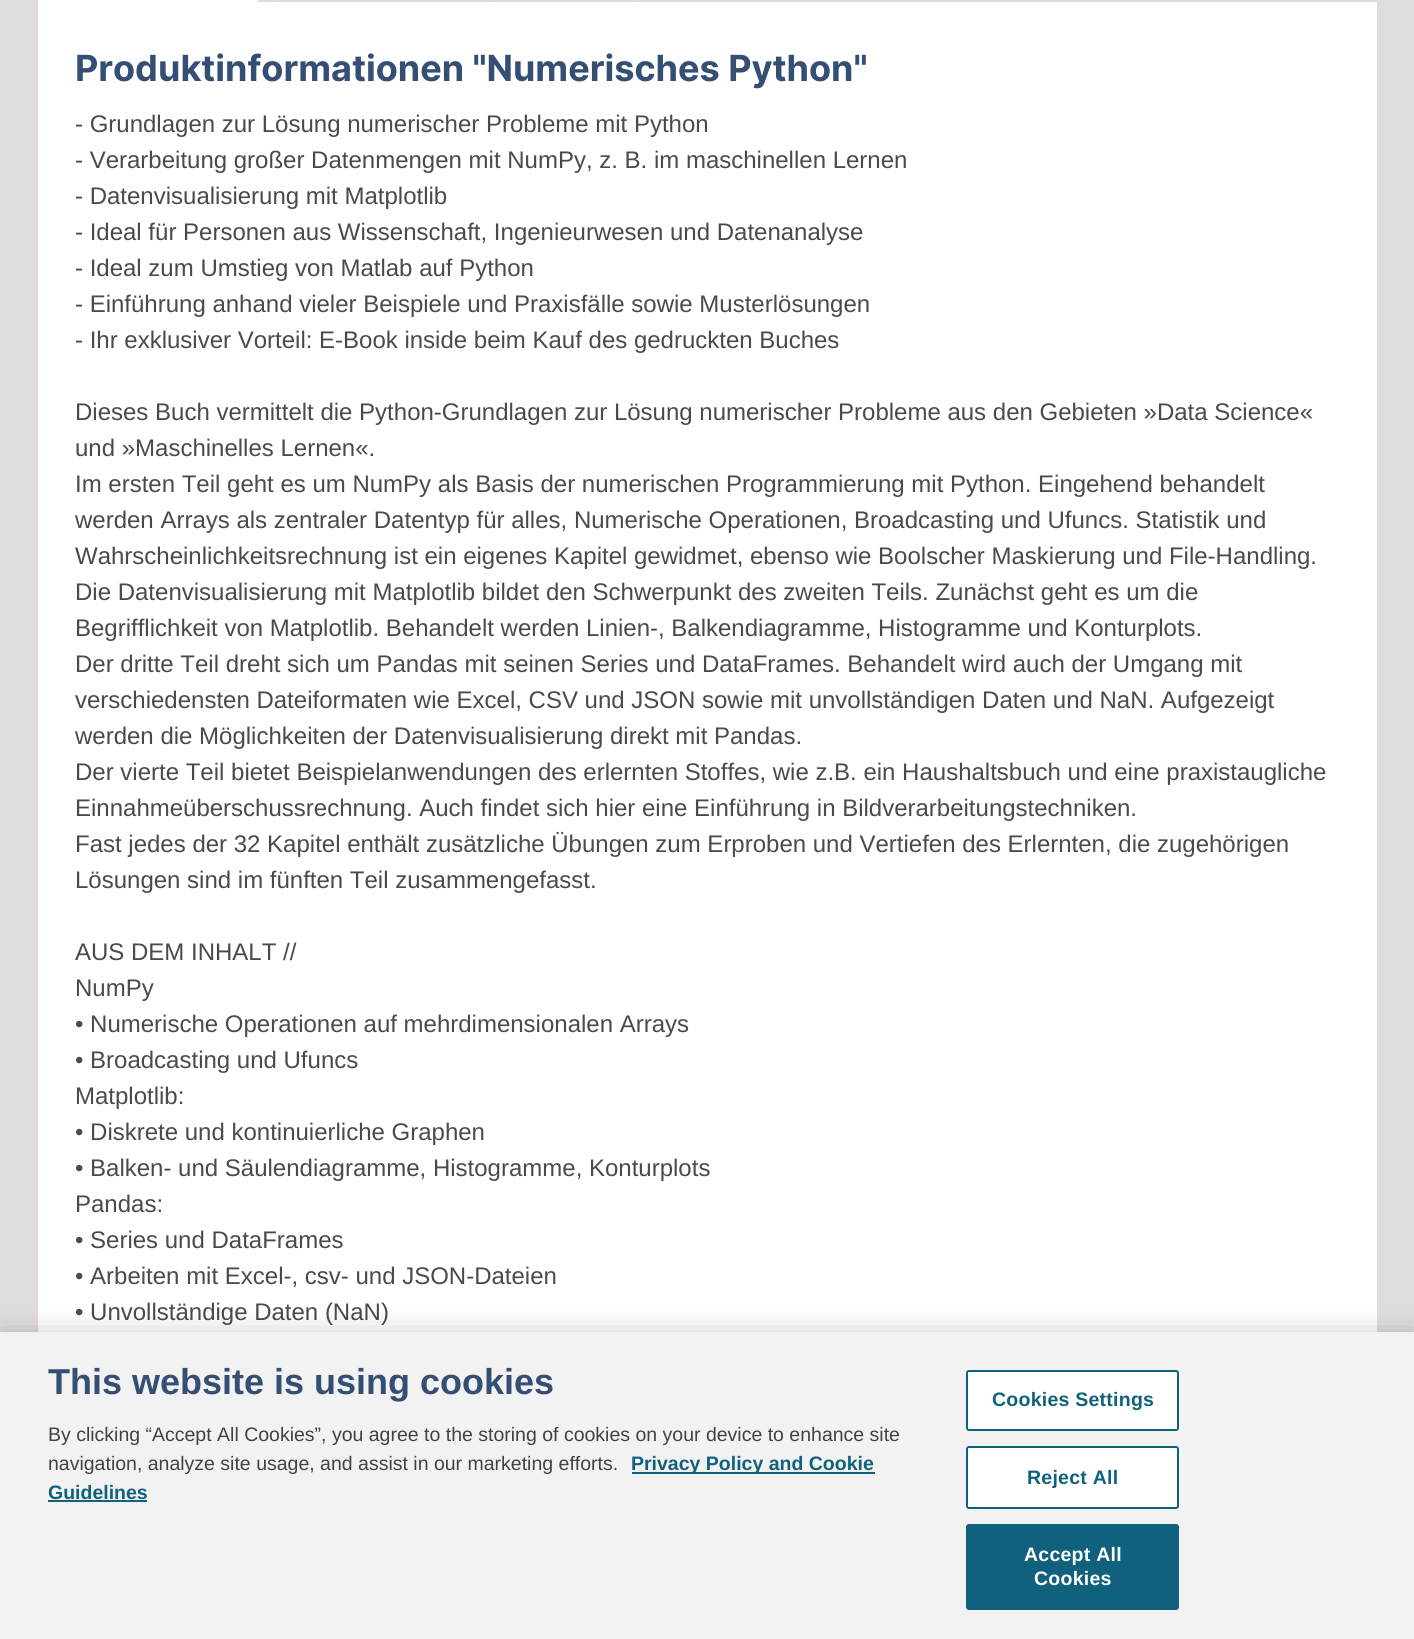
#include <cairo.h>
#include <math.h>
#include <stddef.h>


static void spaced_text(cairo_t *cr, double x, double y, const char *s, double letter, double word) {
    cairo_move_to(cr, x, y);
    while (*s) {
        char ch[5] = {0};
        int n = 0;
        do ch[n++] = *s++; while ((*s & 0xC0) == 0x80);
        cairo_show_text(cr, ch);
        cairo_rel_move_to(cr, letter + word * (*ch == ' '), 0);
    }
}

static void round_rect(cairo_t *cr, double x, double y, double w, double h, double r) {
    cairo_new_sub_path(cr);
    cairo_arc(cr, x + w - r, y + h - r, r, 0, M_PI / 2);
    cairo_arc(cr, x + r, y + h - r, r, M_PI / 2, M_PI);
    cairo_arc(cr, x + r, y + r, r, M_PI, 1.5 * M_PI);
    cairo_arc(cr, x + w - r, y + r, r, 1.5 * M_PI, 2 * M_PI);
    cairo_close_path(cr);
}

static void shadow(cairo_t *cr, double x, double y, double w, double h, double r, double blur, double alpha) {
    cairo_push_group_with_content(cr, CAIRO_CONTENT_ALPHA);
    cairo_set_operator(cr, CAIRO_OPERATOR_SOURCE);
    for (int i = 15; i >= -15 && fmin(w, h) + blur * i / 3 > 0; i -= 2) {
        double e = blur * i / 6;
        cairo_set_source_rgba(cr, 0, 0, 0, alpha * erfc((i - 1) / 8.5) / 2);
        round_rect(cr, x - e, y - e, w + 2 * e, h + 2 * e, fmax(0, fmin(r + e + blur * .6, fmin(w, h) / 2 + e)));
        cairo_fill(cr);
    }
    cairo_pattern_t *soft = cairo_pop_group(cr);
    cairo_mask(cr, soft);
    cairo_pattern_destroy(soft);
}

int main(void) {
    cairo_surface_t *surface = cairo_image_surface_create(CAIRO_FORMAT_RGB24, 1414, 1639);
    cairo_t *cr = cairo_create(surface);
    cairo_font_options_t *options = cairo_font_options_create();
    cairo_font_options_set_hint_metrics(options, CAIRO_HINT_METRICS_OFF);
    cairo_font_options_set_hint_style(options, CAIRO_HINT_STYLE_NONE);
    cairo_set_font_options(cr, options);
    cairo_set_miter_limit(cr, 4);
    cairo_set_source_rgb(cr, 0.886, 0.867, 0.867);
    cairo_paint(cr);
    cairo_set_source_rgb(cr, 1, 1, 1);
    cairo_rectangle(cr, 38, 0, 220, 2);
    cairo_fill(cr);
    cairo_set_source_rgb(cr, 0.855, 0.855, 0.898);
    cairo_rectangle(cr, 273, 0, 195, 2);
    cairo_fill(cr);
    cairo_rectangle(cr, 483, 0, 156, 2);
    cairo_fill(cr);
    cairo_set_source_rgb(cr, 1, 1, 1);
    cairo_rectangle(cr, 38, 2, 1339, 1330);
    cairo_fill(cr);
    cairo_select_font_face(cr, "Inter", CAIRO_FONT_SLANT_NORMAL, CAIRO_FONT_WEIGHT_BOLD);
    cairo_set_font_size(cr, 36);
    cairo_set_source_rgb(cr, 0.208, 0.306, 0.455);
    cairo_move_to(cr, 75, 81);
    cairo_show_text(cr, "Produktinformationen \"Numerisches Python\"");
    cairo_select_font_face(cr, "Liberation Sans", CAIRO_FONT_SLANT_NORMAL, CAIRO_FONT_WEIGHT_NORMAL);
    cairo_set_font_size(cr, 24);
    cairo_set_source_rgb(cr, 0.29, 0.29, 0.29);
    cairo_move_to(cr, 75, 132);
    cairo_show_text(cr, "- Grundlagen zur Lösung numerischer Probleme mit Python");
    cairo_move_to(cr, 75, 168);
    cairo_show_text(cr, "- Verarbeitung großer Datenmengen mit NumPy, z. B. im maschinellen Lernen");
    cairo_move_to(cr, 75, 204);
    cairo_show_text(cr, "- Datenvisualisierung mit Matplotlib");
    cairo_move_to(cr, 75, 240);
    cairo_show_text(cr, "- Ideal für Personen aus Wissenschaft, Ingenieurwesen und Datenanalyse");
    cairo_move_to(cr, 75, 276);
    cairo_show_text(cr, "- Ideal zum Umstieg von Matlab auf Python");
    cairo_move_to(cr, 75, 312);
    cairo_show_text(cr, "- Einführung anhand vieler Beispiele und Praxisfälle sowie Musterlösungen");
    cairo_move_to(cr, 75, 348);
    cairo_show_text(cr, "- Ihr exklusiver Vorteil: E-Book inside beim Kauf des gedruckten Buches");
    cairo_move_to(cr, 75, 420);
    cairo_show_text(cr, "Dieses Buch vermittelt die Python-Grundlagen zur Lösung numerischer Probleme aus den Gebieten »Data Science«");
    cairo_move_to(cr, 75, 456);
    cairo_show_text(cr, "und »Maschinelles Lernen«.");
    cairo_move_to(cr, 75, 492);
    cairo_show_text(cr, "Im ersten Teil geht es um NumPy als Basis der numerischen Programmierung mit Python. Eingehend behandelt");
    cairo_move_to(cr, 75, 528);
    cairo_show_text(cr, "werden Arrays als zentraler Datentyp für alles, Numerische Operationen, Broadcasting und Ufuncs. Statistik und");
    cairo_move_to(cr, 75, 564);
    cairo_show_text(cr, "Wahrscheinlichkeitsrechnung ist ein eigenes Kapitel gewidmet, ebenso wie Boolscher Maskierung und File-Handling.");
    cairo_move_to(cr, 75, 600);
    cairo_show_text(cr, "Die Datenvisualisierung mit Matplotlib bildet den Schwerpunkt des zweiten Teils. Zunächst geht es um die");
    cairo_move_to(cr, 75, 636);
    cairo_show_text(cr, "Begrifflichkeit von Matplotlib. Behandelt werden Linien-, Balkendiagramme, Histogramme und Konturplots.");
    cairo_move_to(cr, 75, 672);
    cairo_show_text(cr, "Der dritte Teil dreht sich um Pandas mit seinen Series und DataFrames. Behandelt wird auch der Umgang mit");
    cairo_move_to(cr, 75, 708);
    cairo_show_text(cr, "verschiedensten Dateiformaten wie Excel, CSV und JSON sowie mit unvollständigen Daten und NaN. Aufgezeigt");
    cairo_move_to(cr, 75, 744);
    cairo_show_text(cr, "werden die Möglichkeiten der Datenvisualisierung direkt mit Pandas.");
    cairo_move_to(cr, 75, 780);
    cairo_show_text(cr, "Der vierte Teil bietet Beispielanwendungen des erlernten Stoffes, wie z.B. ein Haushaltsbuch und eine praxistaugliche");
    cairo_move_to(cr, 75, 816);
    cairo_show_text(cr, "Einnahmeüberschussrechnung. Auch findet sich hier eine Einführung in Bildverarbeitungstechniken.");
    cairo_move_to(cr, 75, 852);
    cairo_show_text(cr, "Fast jedes der 32 Kapitel enthält zusätzliche Übungen zum Erproben und Vertiefen des Erlernten, die zugehörigen");
    cairo_move_to(cr, 75, 888);
    cairo_show_text(cr, "Lösungen sind im fünften Teil zusammengefasst.");
    cairo_move_to(cr, 75, 960);
    cairo_show_text(cr, "AUS DEM INHALT //");
    cairo_move_to(cr, 75, 996);
    cairo_show_text(cr, "NumPy");
    cairo_move_to(cr, 75, 1032);
    cairo_show_text(cr, "• Numerische Operationen auf mehrdimensionalen Arrays");
    cairo_move_to(cr, 75, 1068);
    cairo_show_text(cr, "• Broadcasting und Ufuncs");
    cairo_move_to(cr, 75, 1104);
    cairo_show_text(cr, "Matplotlib:");
    cairo_move_to(cr, 75, 1140);
    cairo_show_text(cr, "• Diskrete und kontinuierliche Graphen");
    cairo_move_to(cr, 75, 1176);
    cairo_show_text(cr, "• Balken- und Säulendiagramme, Histogramme, Konturplots");
    cairo_move_to(cr, 75, 1212);
    cairo_show_text(cr, "Pandas:");
    cairo_move_to(cr, 75, 1248);
    cairo_show_text(cr, "• Series und DataFrames");
    cairo_move_to(cr, 75, 1284);
    cairo_show_text(cr, "• Arbeiten mit Excel-, csv- und JSON-Dateien");
    cairo_move_to(cr, 75, 1320);
    cairo_show_text(cr, "• Unvollständige Daten (NaN)");
    cairo_set_source_rgb(cr, 0, 0, 0);
    shadow(cr, 0, 1332, 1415, 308, 0, 13.5, 0.2);
    cairo_set_source_rgb(cr, 0.949, 0.949, 0.949);
    cairo_rectangle(cr, 0, 1332, 1414, 307);
    cairo_fill(cr);
    cairo_select_font_face(cr, "Liberation Sans", CAIRO_FONT_SLANT_NORMAL, CAIRO_FONT_WEIGHT_BOLD);
    cairo_set_font_size(cr, 36);
    cairo_set_source_rgb(cr, 0.208, 0.306, 0.455);
    cairo_move_to(cr, 48, 1394);
    cairo_show_text(cr, "This website is using cookies");
    cairo_select_font_face(cr, "Liberation Sans", CAIRO_FONT_SLANT_NORMAL, CAIRO_FONT_WEIGHT_NORMAL);
    cairo_set_font_size(cr, 19.5);
    cairo_set_source_rgb(cr, 0.259, 0.259, 0.259);
    cairo_move_to(cr, 48, 1441);
    cairo_show_text(cr, "By clicking “Accept All Cookies”, you agree to the storing of cookies on your device to enhance site");
    cairo_move_to(cr, 48, 1470);
    cairo_show_text(cr, "navigation, analyze site usage, and assist in our marketing efforts.");
    cairo_set_source_rgb(cr, 0.059, 0.38, 0.494);
    cairo_rectangle(cr, 632, 1472, 243, 2);
    cairo_fill(cr);
    cairo_select_font_face(cr, "Liberation Sans", CAIRO_FONT_SLANT_NORMAL, CAIRO_FONT_WEIGHT_BOLD);
    cairo_move_to(cr, 631, 1470);
    cairo_show_text(cr, "Privacy Policy and Cookie");
    cairo_move_to(cr, 48, 1499);
    cairo_show_text(cr, "Guidelines");
    cairo_rectangle(cr, 48, 1500, 99, 2);
    cairo_fill(cr);
    cairo_set_source_rgb(cr, 1, 1, 1);
    round_rect(cr, 967, 1371, 211, 59, 2);
    cairo_fill_preserve(cr);
    cairo_set_source_rgb(cr, 0.059, 0.38, 0.494);
    cairo_stroke(cr);
    spaced_text(cr, 992, 1406, "Cookies Settings", 0.25, 0);
    cairo_set_source_rgb(cr, 1, 1, 1);
    round_rect(cr, 967, 1447, 211, 61, 2);
    cairo_fill_preserve(cr);
    cairo_set_source_rgb(cr, 0.059, 0.38, 0.494);
    cairo_stroke(cr);
    spaced_text(cr, 1027, 1484, "Reject All", 0.25, 0);
    round_rect(cr, 967, 1525, 211, 84, 2);
    cairo_fill_preserve(cr);
    cairo_stroke(cr);
    cairo_set_source_rgb(cr, 1, 1, 1);
    spaced_text(cr, 1024, 1561, "Accept All", 0.25, 0);
    spaced_text(cr, 1034, 1585, "Cookies", 0.25, 0);
    cairo_surface_write_to_png(surface, "page.png");
    cairo_font_options_destroy(options);
    cairo_destroy(cr);
    cairo_surface_destroy(surface);
    return 0;
}
